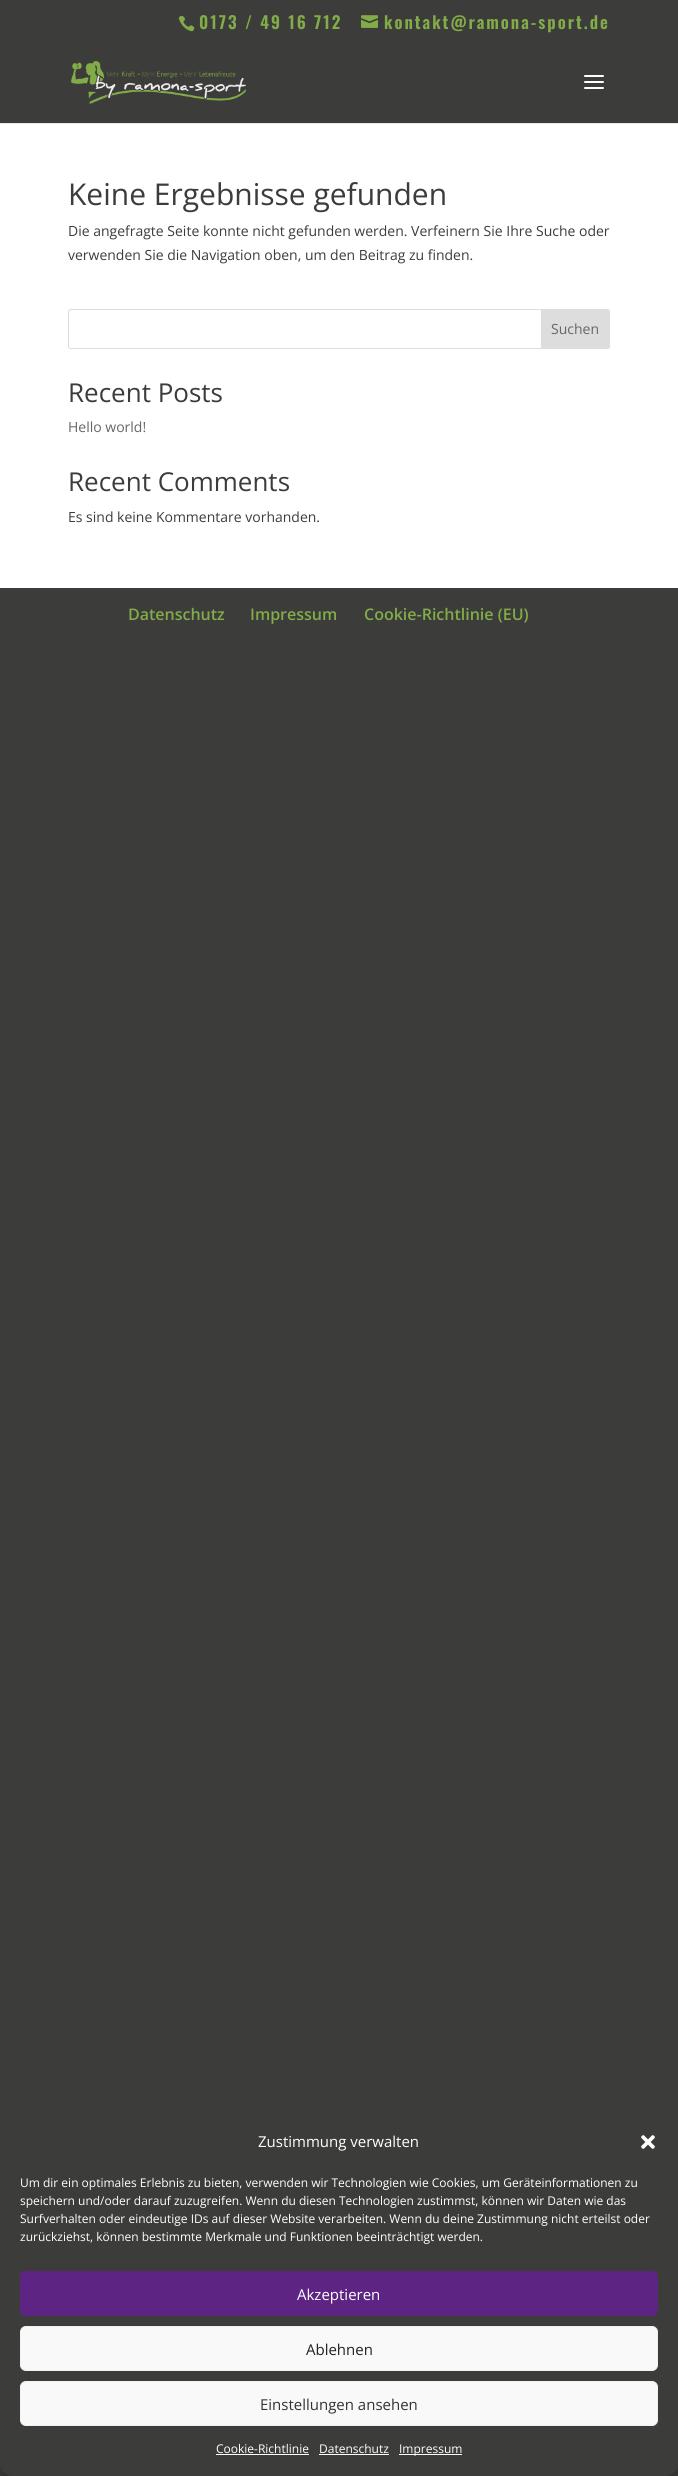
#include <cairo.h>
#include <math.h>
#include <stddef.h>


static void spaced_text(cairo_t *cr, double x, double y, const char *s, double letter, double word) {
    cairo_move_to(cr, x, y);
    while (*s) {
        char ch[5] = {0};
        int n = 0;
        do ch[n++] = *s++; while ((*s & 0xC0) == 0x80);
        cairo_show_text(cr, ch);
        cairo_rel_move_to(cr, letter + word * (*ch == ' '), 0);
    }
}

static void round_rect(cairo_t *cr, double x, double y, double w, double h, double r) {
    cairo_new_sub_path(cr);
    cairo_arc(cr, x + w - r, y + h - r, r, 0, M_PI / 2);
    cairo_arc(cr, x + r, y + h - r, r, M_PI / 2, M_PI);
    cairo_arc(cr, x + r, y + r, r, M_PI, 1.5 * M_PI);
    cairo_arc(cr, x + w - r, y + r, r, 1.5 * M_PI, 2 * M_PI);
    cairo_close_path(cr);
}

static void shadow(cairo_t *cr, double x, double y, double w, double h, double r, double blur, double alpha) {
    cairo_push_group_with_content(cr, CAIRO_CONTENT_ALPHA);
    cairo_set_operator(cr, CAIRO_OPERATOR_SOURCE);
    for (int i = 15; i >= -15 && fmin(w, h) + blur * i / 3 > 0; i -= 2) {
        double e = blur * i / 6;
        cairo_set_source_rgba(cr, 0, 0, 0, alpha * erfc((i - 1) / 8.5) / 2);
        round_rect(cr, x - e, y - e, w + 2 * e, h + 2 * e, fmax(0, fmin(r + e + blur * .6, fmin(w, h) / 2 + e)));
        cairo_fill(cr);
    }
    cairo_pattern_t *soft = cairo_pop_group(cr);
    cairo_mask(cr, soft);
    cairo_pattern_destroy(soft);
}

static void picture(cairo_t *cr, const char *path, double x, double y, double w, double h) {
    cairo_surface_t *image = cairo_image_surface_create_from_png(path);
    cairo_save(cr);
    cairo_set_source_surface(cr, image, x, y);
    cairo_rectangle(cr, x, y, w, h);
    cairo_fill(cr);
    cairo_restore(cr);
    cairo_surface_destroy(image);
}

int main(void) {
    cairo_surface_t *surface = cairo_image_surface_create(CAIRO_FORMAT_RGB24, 678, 2476);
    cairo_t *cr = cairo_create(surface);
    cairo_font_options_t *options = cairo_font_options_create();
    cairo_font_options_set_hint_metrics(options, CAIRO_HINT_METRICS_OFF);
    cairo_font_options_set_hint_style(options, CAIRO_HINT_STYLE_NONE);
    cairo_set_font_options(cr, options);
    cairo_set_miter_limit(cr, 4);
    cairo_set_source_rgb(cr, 0.235, 0.235, 0.231);
    cairo_paint(cr);
    picture(cr, "img1.png", 178, 15, 17, 17);
    cairo_select_font_face(cr, "Oswald SemiBold", CAIRO_FONT_SLANT_NORMAL, CAIRO_FONT_WEIGHT_NORMAL);
    cairo_set_font_size(cr, 17);
    cairo_set_source_rgb(cr, 0.51, 0.675, 0.282);
    spaced_text(cr, 199, 29, "0173 / 49 16 712", 2, 0);
    picture(cr, "img2.png", 361, 15, 17, 13);
    spaced_text(cr, 384, 29, "kontakt@ramona-sport.de", 2, 0);
    cairo_set_source_rgb(cr, 0.902, 0.902, 0.902);
    cairo_rectangle(cr, 0, 123, 678, 1);
    cairo_fill(cr);
    picture(cr, "img3.png", 71, 61, 175, 43);
    picture(cr, "img4.png", 584, 75, 20, 14);
    cairo_set_source_rgb(cr, 1, 1, 1);
    cairo_rectangle(cr, 0, 124, 678, 464);
    cairo_fill(cr);
    cairo_select_font_face(cr, "Open Sans", CAIRO_FONT_SLANT_NORMAL, CAIRO_FONT_WEIGHT_NORMAL);
    cairo_set_font_size(cr, 30);
    cairo_set_source_rgb(cr, 0.235, 0.235, 0.231);
    cairo_move_to(cr, 68, 205);
    cairo_show_text(cr, "Keine Ergebnisse gefunden");
    cairo_set_font_size(cr, 14);
    cairo_move_to(cr, 68, 236);
    cairo_show_text(cr, "Die angefragte Seite konnte nicht gefunden werden. Verfeinern Sie Ihre Suche oder");
    cairo_move_to(cr, 68, 260);
    cairo_show_text(cr, "verwenden Sie die Navigation oben, um den Beitrag zu finden.");
    round_rect(cr, 68.5, 309.5, 541, 39, 2.5);
    cairo_set_source_rgb(cr, 0.867, 0.867, 0.867);
    cairo_set_line_width(cr, 1);
    cairo_stroke(cr);
    cairo_new_path(cr);
    cairo_move_to(cr, 541.5, 309.5);
    cairo_line_to(cr, 607, 309.5);
    cairo_curve_to(cr, 608.5, 309.5, 609.5, 310.5, 609.5, 312);
    cairo_line_to(cr, 609.5, 346);
    cairo_curve_to(cr, 609.5, 347.5, 608.5, 348.5, 607, 348.5);
    cairo_line_to(cr, 541.5, 348.5);
    cairo_close_path(cr);
    cairo_fill_preserve(cr);
    cairo_stroke(cr);
    cairo_set_source_rgb(cr, 0.4, 0.4, 0.4);
    cairo_move_to(cr, 551, 334);
    cairo_show_text(cr, "Suchen");
    cairo_set_font_size(cr, 26);
    cairo_set_source_rgb(cr, 0.235, 0.235, 0.231);
    cairo_move_to(cr, 68, 402);
    cairo_show_text(cr, "Recent Posts");
    cairo_set_font_size(cr, 14);
    cairo_set_source_rgb(cr, 0.4, 0.4, 0.4);
    cairo_move_to(cr, 68, 432);
    cairo_show_text(cr, "Hello world!");
    cairo_set_font_size(cr, 26);
    cairo_set_source_rgb(cr, 0.235, 0.235, 0.231);
    cairo_move_to(cr, 68, 491);
    cairo_show_text(cr, "Recent Comments");
    cairo_set_font_size(cr, 14);
    cairo_move_to(cr, 68, 522);
    cairo_show_text(cr, "Es sind keine Kommentare vorhanden.");
    cairo_select_font_face(cr, "Open Sans SemiBold", CAIRO_FONT_SLANT_NORMAL, CAIRO_FONT_WEIGHT_NORMAL);
    cairo_set_font_size(cr, 16);
    cairo_set_source_rgb(cr, 0.51, 0.675, 0.282);
    cairo_move_to(cr, 128, 620);
    cairo_show_text(cr, "Datenschutz");
    cairo_move_to(cr, 250, 620);
    cairo_show_text(cr, "Impressum");
    cairo_move_to(cr, 364, 620);
    cairo_show_text(cr, "Cookie-Richtlinie (EU)");
    cairo_set_source_rgb(cr, 0, 0, 0);
    shadow(cr, 0, 2121, 678, 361, 12, 3, 0.23);
    cairo_set_source_rgb(cr, 0.235, 0.235, 0.231);
    round_rect(cr, 0, 2115, 678, 361, 12);
    cairo_fill(cr);
    cairo_select_font_face(cr, "Open Sans", CAIRO_FONT_SLANT_NORMAL, CAIRO_FONT_WEIGHT_NORMAL);
    cairo_set_font_size(cr, 15);
    cairo_set_source_rgb(cr, 1, 1, 1);
    cairo_move_to(cr, 258, 2147);
    cairo_show_text(cr, "Zustimmung verwalten");
    picture(cr, "img5.png", 641, 2135, 14, 14);
    cairo_set_font_size(cr, 12);
    cairo_move_to(cr, 20, 2187);
    cairo_show_text(cr, "Um dir ein optimales Erlebnis zu bieten, verwenden wir Technologien wie Cookies, um Geräteinformationen zu");
    cairo_move_to(cr, 20, 2205);
    cairo_show_text(cr, "speichern und/oder darauf zuzugreifen. Wenn du diesen Technologien zustimmst, können wir Daten wie das");
    cairo_move_to(cr, 20, 2223);
    cairo_show_text(cr, "Surfverhalten oder eindeutige IDs auf dieser Website verarbeiten. Wenn du deine Zustimmung nicht erteilst oder");
    cairo_move_to(cr, 20, 2241);
    cairo_show_text(cr, "zurückziehst, können bestimmte Merkmale und Funktionen beeinträchtigt werden.");
    cairo_set_source_rgb(cr, 0.365, 0.141, 0.514);
    round_rect(cr, 20.5, 2271.5, 637, 44, 5.5);
    cairo_fill_preserve(cr);
    cairo_stroke(cr);
    cairo_set_font_size(cr, 15);
    cairo_set_source_rgb(cr, 1, 1, 1);
    cairo_move_to(cr, 297, 2300);
    cairo_show_text(cr, "Akzeptieren");
    cairo_set_source_rgb(cr, 0.976, 0.976, 0.976);
    round_rect(cr, 20.5, 2326.5, 637, 44, 5.5);
    cairo_fill_preserve(cr);
    cairo_set_source_rgb(cr, 0.949, 0.949, 0.949);
    cairo_stroke(cr);
    cairo_set_source_rgb(cr, 0.133, 0.133, 0.133);
    cairo_move_to(cr, 306, 2355);
    cairo_show_text(cr, "Ablehnen");
    cairo_set_source_rgb(cr, 0.976, 0.976, 0.976);
    round_rect(cr, 20.5, 2381.5, 637, 44, 5.5);
    cairo_fill_preserve(cr);
    cairo_set_source_rgb(cr, 0.949, 0.949, 0.949);
    cairo_stroke(cr);
    cairo_set_source_rgb(cr, 0.2, 0.2, 0.2);
    cairo_move_to(cr, 260, 2410);
    cairo_show_text(cr, "Einstellungen ansehen");
    cairo_set_font_size(cr, 12);
    cairo_set_source_rgb(cr, 1, 1, 1);
    cairo_move_to(cr, 216, 2453);
    cairo_show_text(cr, "Cookie-Richtlinie");
    cairo_rectangle(cr, 216, 2454, 93, 1);
    cairo_fill(cr);
    cairo_move_to(cr, 319, 2453);
    cairo_show_text(cr, "Datenschutz");
    cairo_rectangle(cr, 319, 2454, 70, 1);
    cairo_fill(cr);
    cairo_rectangle(cr, 399, 2454, 63, 1);
    cairo_fill(cr);
    cairo_move_to(cr, 399, 2453);
    cairo_show_text(cr, "Impressum");
    cairo_surface_write_to_png(surface, "page.png");
    cairo_font_options_destroy(options);
    cairo_destroy(cr);
    cairo_surface_destroy(surface);
    return 0;
}
